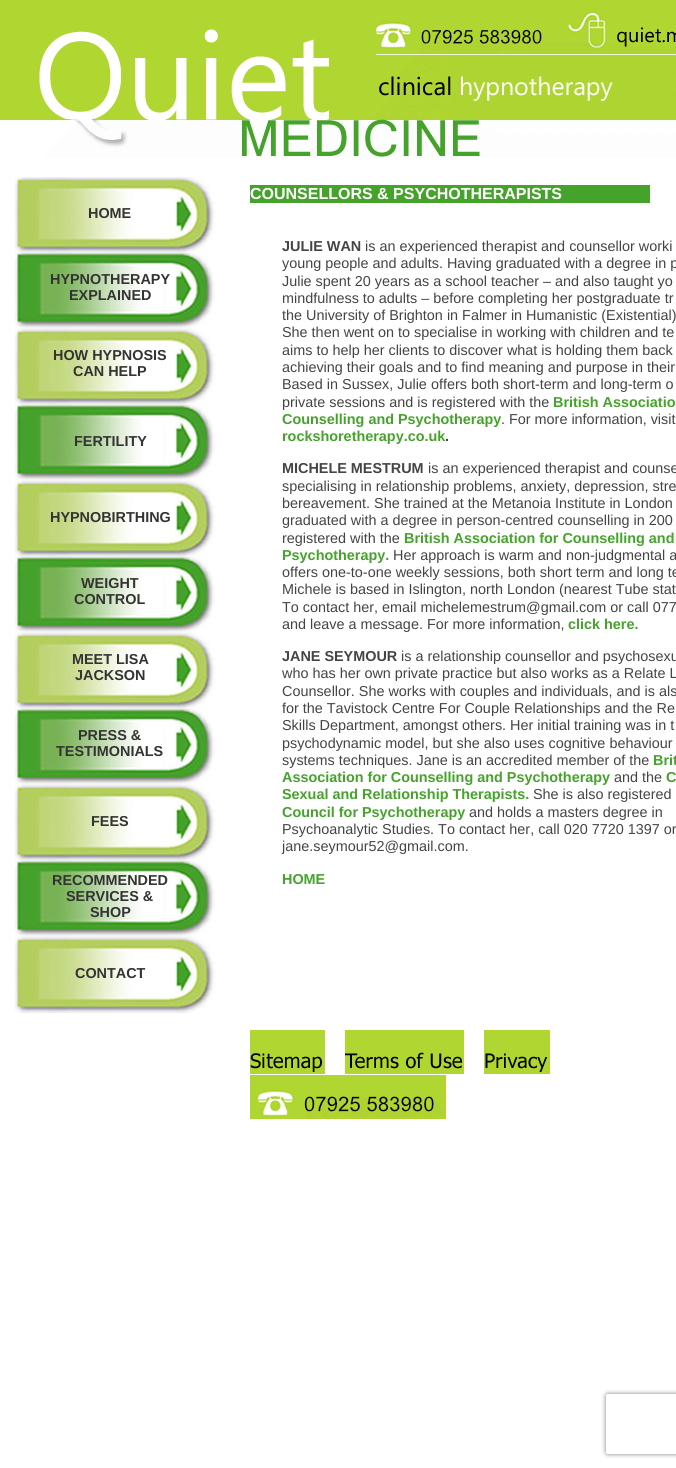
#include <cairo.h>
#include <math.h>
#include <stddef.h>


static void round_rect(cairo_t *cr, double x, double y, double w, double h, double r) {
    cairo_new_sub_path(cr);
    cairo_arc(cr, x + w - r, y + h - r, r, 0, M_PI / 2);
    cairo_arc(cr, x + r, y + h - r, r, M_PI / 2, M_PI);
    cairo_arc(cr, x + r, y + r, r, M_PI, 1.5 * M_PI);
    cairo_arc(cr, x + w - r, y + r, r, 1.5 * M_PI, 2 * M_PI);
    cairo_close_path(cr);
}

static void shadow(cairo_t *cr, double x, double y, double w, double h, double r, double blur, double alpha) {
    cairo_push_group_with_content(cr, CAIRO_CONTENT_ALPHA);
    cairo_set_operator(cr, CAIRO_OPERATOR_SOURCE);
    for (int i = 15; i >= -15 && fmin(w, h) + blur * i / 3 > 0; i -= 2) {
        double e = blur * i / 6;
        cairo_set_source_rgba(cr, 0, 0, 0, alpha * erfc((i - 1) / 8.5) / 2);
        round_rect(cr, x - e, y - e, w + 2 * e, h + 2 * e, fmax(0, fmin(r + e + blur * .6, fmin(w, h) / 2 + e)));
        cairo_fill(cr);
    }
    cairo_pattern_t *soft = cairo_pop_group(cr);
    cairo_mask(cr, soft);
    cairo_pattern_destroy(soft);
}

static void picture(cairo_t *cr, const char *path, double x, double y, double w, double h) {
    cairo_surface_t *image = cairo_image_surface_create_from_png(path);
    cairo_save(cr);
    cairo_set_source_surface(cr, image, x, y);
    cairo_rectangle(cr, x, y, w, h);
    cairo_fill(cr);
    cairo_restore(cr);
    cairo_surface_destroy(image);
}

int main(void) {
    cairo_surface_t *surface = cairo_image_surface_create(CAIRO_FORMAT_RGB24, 676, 1468);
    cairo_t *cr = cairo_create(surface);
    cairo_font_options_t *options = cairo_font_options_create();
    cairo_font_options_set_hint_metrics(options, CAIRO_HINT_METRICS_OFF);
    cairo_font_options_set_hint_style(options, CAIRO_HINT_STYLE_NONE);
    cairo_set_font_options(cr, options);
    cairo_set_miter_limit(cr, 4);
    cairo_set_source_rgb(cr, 1, 1, 1);
    cairo_paint(cr);
    picture(cr, "img1.png", 0, 0, 676, 158);
    picture(cr, "img2.png", 15, 177, 200, 76);
    cairo_select_font_face(cr, "Liberation Sans", CAIRO_FONT_SLANT_NORMAL, CAIRO_FONT_WEIGHT_BOLD);
    cairo_set_font_size(cr, 14.4);
    cairo_set_source_rgb(cr, 0.2, 0.2, 0.2);
    cairo_move_to(cr, 88, 218);
    cairo_show_text(cr, "HOME");
    picture(cr, "img3.png", 15, 253, 200, 76);
    cairo_move_to(cr, 50, 284);
    cairo_show_text(cr, "HYPNOTHERAPY");
    cairo_move_to(cr, 69, 300);
    cairo_show_text(cr, "EXPLAINED");
    picture(cr, "img2.png", 15, 329, 200, 76);
    cairo_move_to(cr, 53, 360);
    cairo_show_text(cr, "HOW HYPNOSIS");
    cairo_move_to(cr, 73, 376);
    cairo_show_text(cr, "CAN HELP");
    picture(cr, "img3.png", 15, 405, 200, 76);
    cairo_move_to(cr, 74, 446);
    cairo_show_text(cr, "FERTILITY");
    picture(cr, "img2.png", 15, 481, 200, 76);
    cairo_move_to(cr, 50, 522);
    cairo_show_text(cr, "HYPNOBIRTHING");
    picture(cr, "img3.png", 15, 557, 200, 76);
    cairo_move_to(cr, 81, 588);
    cairo_show_text(cr, "WEIGHT");
    cairo_move_to(cr, 74, 604);
    cairo_show_text(cr, "CONTROL");
    picture(cr, "img2.png", 15, 633, 200, 76);
    cairo_move_to(cr, 72, 664);
    cairo_show_text(cr, "MEET LISA");
    cairo_move_to(cr, 75, 680);
    cairo_show_text(cr, "JACKSON");
    picture(cr, "img3.png", 15, 709, 200, 76);
    cairo_move_to(cr, 78, 740);
    cairo_show_text(cr, "PRESS &");
    cairo_move_to(cr, 56, 756);
    cairo_show_text(cr, "TESTIMONIALS");
    picture(cr, "img2.png", 15, 785, 200, 76);
    cairo_move_to(cr, 91, 826);
    cairo_show_text(cr, "FEES");
    picture(cr, "img3.png", 15, 861, 200, 76);
    cairo_move_to(cr, 52, 885);
    cairo_show_text(cr, "RECOMMENDED");
    cairo_move_to(cr, 66, 901);
    cairo_show_text(cr, "SERVICES &");
    cairo_move_to(cr, 90, 917);
    cairo_show_text(cr, "SHOP");
    picture(cr, "img2.png", 15, 937, 200, 76);
    cairo_move_to(cr, 75, 978);
    cairo_show_text(cr, "CONTACT");
    cairo_set_source_rgb(cr, 0.271, 0.639, 0.169);
    cairo_rectangle(cr, 250, 185, 400, 18);
    cairo_fill(cr);
    cairo_set_font_size(cr, 16);
    cairo_set_source_rgb(cr, 1, 1, 1);
    cairo_move_to(cr, 250, 199);
    cairo_show_text(cr, "COUNSELLORS & PSYCHOTHERAPISTS");
    cairo_set_font_size(cr, 14.4);
    cairo_set_source_rgb(cr, 0.267, 0.267, 0.267);
    cairo_move_to(cr, 282, 251);
    cairo_show_text(cr, "JULIE WAN");
    cairo_select_font_face(cr, "Liberation Sans", CAIRO_FONT_SLANT_NORMAL, CAIRO_FONT_WEIGHT_NORMAL);
    cairo_move_to(cr, 365, 251);
    cairo_show_text(cr, "is an experienced therapist and counsellor worki");
    cairo_move_to(cr, 282, 268);
    cairo_show_text(cr, "young people and adults. Having graduated with a degree in p");
    cairo_move_to(cr, 282, 286);
    cairo_show_text(cr, "Julie spent 20 years as a school teacher – and also taught yo");
    cairo_move_to(cr, 282, 303);
    cairo_show_text(cr, "mindfulness to adults – before completing her postgraduate tr");
    cairo_move_to(cr, 282, 320);
    cairo_show_text(cr, "the University of Brighton in Falmer in Humanistic (Existential)");
    cairo_move_to(cr, 282, 337);
    cairo_show_text(cr, "She then went on to specialise in working with children and te");
    cairo_move_to(cr, 282, 355);
    cairo_show_text(cr, "aims to help her clients to discover what is holding them back");
    cairo_move_to(cr, 282, 372);
    cairo_show_text(cr, "achieving their goals and to find meaning and purpose in their");
    cairo_move_to(cr, 282, 389);
    cairo_show_text(cr, "Based in Sussex, Julie offers both short-term and long-term o");
    cairo_move_to(cr, 282, 407);
    cairo_show_text(cr, "private sessions and is registered with the");
    cairo_select_font_face(cr, "Liberation Sans", CAIRO_FONT_SLANT_NORMAL, CAIRO_FONT_WEIGHT_BOLD);
    cairo_set_source_rgb(cr, 0.271, 0.639, 0.169);
    cairo_move_to(cr, 553, 407);
    cairo_show_text(cr, "British Associatio");
    cairo_move_to(cr, 282, 424);
    cairo_show_text(cr, "Counselling and Psychotherapy");
    cairo_select_font_face(cr, "Liberation Sans", CAIRO_FONT_SLANT_NORMAL, CAIRO_FONT_WEIGHT_NORMAL);
    cairo_set_source_rgb(cr, 0.267, 0.267, 0.267);
    cairo_move_to(cr, 501, 424);
    cairo_show_text(cr, ". For more information, visit");
    cairo_select_font_face(cr, "Liberation Sans", CAIRO_FONT_SLANT_NORMAL, CAIRO_FONT_WEIGHT_BOLD);
    cairo_set_source_rgb(cr, 0.271, 0.639, 0.169);
    cairo_move_to(cr, 282, 441);
    cairo_show_text(cr, "rockshoretherapy.co.uk");
    cairo_set_source_rgb(cr, 0.267, 0.267, 0.267);
    cairo_move_to(cr, 445, 441);
    cairo_show_text(cr, ".");
    cairo_move_to(cr, 282, 473);
    cairo_show_text(cr, "MICHELE MESTRUM");
    cairo_select_font_face(cr, "Liberation Sans", CAIRO_FONT_SLANT_NORMAL, CAIRO_FONT_WEIGHT_NORMAL);
    cairo_move_to(cr, 428, 473);
    cairo_show_text(cr, "is an experienced therapist and counse");
    cairo_move_to(cr, 282, 491);
    cairo_show_text(cr, "specialising in relationship problems, anxiety, depression, stre");
    cairo_move_to(cr, 282, 508);
    cairo_show_text(cr, "bereavement. She trained at the Metanoia Institute in London");
    cairo_move_to(cr, 282, 525);
    cairo_show_text(cr, "graduated with a degree in person-centred counselling in 200");
    cairo_move_to(cr, 282, 543);
    cairo_show_text(cr, "registered with the");
    cairo_select_font_face(cr, "Liberation Sans", CAIRO_FONT_SLANT_NORMAL, CAIRO_FONT_WEIGHT_BOLD);
    cairo_set_source_rgb(cr, 0.271, 0.639, 0.169);
    cairo_move_to(cr, 404, 543);
    cairo_show_text(cr, "British Association for Counselling and");
    cairo_move_to(cr, 282, 560);
    cairo_show_text(cr, "Psychotherapy.");
    cairo_select_font_face(cr, "Liberation Sans", CAIRO_FONT_SLANT_NORMAL, CAIRO_FONT_WEIGHT_NORMAL);
    cairo_set_source_rgb(cr, 0.267, 0.267, 0.267);
    cairo_move_to(cr, 393, 560);
    cairo_show_text(cr, "Her approach is warm and non-judgmental a");
    cairo_move_to(cr, 282, 577);
    cairo_show_text(cr, "offers one-to-one weekly sessions, both short term and long te");
    cairo_move_to(cr, 282, 594);
    cairo_show_text(cr, "Michele is based in Islington, north London (nearest Tube stat");
    cairo_move_to(cr, 282, 612);
    cairo_show_text(cr, "To contact her, email michelemestrum@gmail.com or call 077");
    cairo_move_to(cr, 282, 629);
    cairo_show_text(cr, "and leave a message. For more information,");
    cairo_select_font_face(cr, "Liberation Sans", CAIRO_FONT_SLANT_NORMAL, CAIRO_FONT_WEIGHT_BOLD);
    cairo_set_source_rgb(cr, 0.271, 0.639, 0.169);
    cairo_move_to(cr, 568, 629);
    cairo_show_text(cr, "click here.");
    cairo_set_source_rgb(cr, 0.267, 0.267, 0.267);
    cairo_move_to(cr, 282, 661);
    cairo_show_text(cr, "JANE SEYMOUR");
    cairo_select_font_face(cr, "Liberation Sans", CAIRO_FONT_SLANT_NORMAL, CAIRO_FONT_WEIGHT_NORMAL);
    cairo_move_to(cr, 401, 661);
    cairo_show_text(cr, "is a relationship counsellor and psychosexu");
    cairo_move_to(cr, 282, 678);
    cairo_show_text(cr, "who has her own private practice but also works as a Relate L");
    cairo_move_to(cr, 282, 696);
    cairo_show_text(cr, "Counsellor. She works with couples and individuals, and is als");
    cairo_move_to(cr, 282, 713);
    cairo_show_text(cr, "for the Tavistock Centre For Couple Relationships and the Re");
    cairo_move_to(cr, 282, 730);
    cairo_show_text(cr, "Skills Department, amongst others. Her initial training was in t");
    cairo_move_to(cr, 282, 748);
    cairo_show_text(cr, "psychodynamic model, but she also uses cognitive behaviour");
    cairo_move_to(cr, 282, 765);
    cairo_show_text(cr, "systems techniques. Jane is an accredited member of the");
    cairo_select_font_face(cr, "Liberation Sans", CAIRO_FONT_SLANT_NORMAL, CAIRO_FONT_WEIGHT_BOLD);
    cairo_set_source_rgb(cr, 0.271, 0.639, 0.169);
    cairo_move_to(cr, 653, 765);
    cairo_show_text(cr, "Brit");
    cairo_move_to(cr, 282, 782);
    cairo_show_text(cr, "Association for Counselling and Psychotherapy");
    cairo_select_font_face(cr, "Liberation Sans", CAIRO_FONT_SLANT_NORMAL, CAIRO_FONT_WEIGHT_NORMAL);
    cairo_set_source_rgb(cr, 0.267, 0.267, 0.267);
    cairo_move_to(cr, 614, 782);
    cairo_show_text(cr, "and the");
    cairo_select_font_face(cr, "Liberation Sans", CAIRO_FONT_SLANT_NORMAL, CAIRO_FONT_WEIGHT_BOLD);
    cairo_set_source_rgb(cr, 0.271, 0.639, 0.169);
    cairo_move_to(cr, 666, 782);
    cairo_show_text(cr, "C");
    cairo_move_to(cr, 282, 799);
    cairo_show_text(cr, "Sexual and Relationship Therapists.");
    cairo_select_font_face(cr, "Liberation Sans", CAIRO_FONT_SLANT_NORMAL, CAIRO_FONT_WEIGHT_NORMAL);
    cairo_set_source_rgb(cr, 0.267, 0.267, 0.267);
    cairo_move_to(cr, 533, 799);
    cairo_show_text(cr, "She is also registered");
    cairo_select_font_face(cr, "Liberation Sans", CAIRO_FONT_SLANT_NORMAL, CAIRO_FONT_WEIGHT_BOLD);
    cairo_set_source_rgb(cr, 0.271, 0.639, 0.169);
    cairo_move_to(cr, 282, 817);
    cairo_show_text(cr, "Council for Psychotherapy");
    cairo_select_font_face(cr, "Liberation Sans", CAIRO_FONT_SLANT_NORMAL, CAIRO_FONT_WEIGHT_NORMAL);
    cairo_set_source_rgb(cr, 0.267, 0.267, 0.267);
    cairo_move_to(cr, 469, 817);
    cairo_show_text(cr, "and holds a masters degree in");
    cairo_move_to(cr, 282, 834);
    cairo_show_text(cr, "Psychoanalytic Studies. To contact her, call 020 7720 1397 or");
    cairo_move_to(cr, 282, 851);
    cairo_show_text(cr, "jane.seymour52@gmail.com.");
    cairo_select_font_face(cr, "Liberation Sans", CAIRO_FONT_SLANT_NORMAL, CAIRO_FONT_WEIGHT_BOLD);
    cairo_set_source_rgb(cr, 0.271, 0.639, 0.169);
    cairo_move_to(cr, 282, 884);
    cairo_show_text(cr, "HOME");
    picture(cr, "img4.png", 250, 1030, 75, 44);
    picture(cr, "img5.png", 345, 1030, 119, 44);
    picture(cr, "img6.png", 484, 1030, 66, 44);
    picture(cr, "img7.png", 250, 1075, 196, 44);
    cairo_save(cr);
    cairo_set_fill_rule(cr, CAIRO_FILL_RULE_EVEN_ODD);
    cairo_new_path(cr);
    cairo_move_to(cr, 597, 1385);
    cairo_line_to(cr, 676, 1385);
    cairo_line_to(cr, 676, 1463);
    cairo_line_to(cr, 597, 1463);
    cairo_close_path(cr);
    cairo_move_to(cr, 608, 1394);
    cairo_line_to(cr, 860, 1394);
    cairo_curve_to(cr, 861, 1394, 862, 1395, 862, 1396);
    cairo_line_to(cr, 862, 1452);
    cairo_curve_to(cr, 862, 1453, 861, 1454, 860, 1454);
    cairo_line_to(cr, 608, 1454);
    cairo_curve_to(cr, 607, 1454, 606, 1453, 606, 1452);
    cairo_line_to(cr, 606, 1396);
    cairo_curve_to(cr, 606, 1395, 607, 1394, 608, 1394);
    cairo_close_path(cr);
    cairo_clip(cr);
    cairo_set_source_rgb(cr, 0.502, 0.502, 0.502);
    shadow(cr, 606, 1394, 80, 60, 2, 2.5, 1);
    cairo_restore(cr);
    cairo_surface_write_to_png(surface, "page.png");
    cairo_font_options_destroy(options);
    cairo_destroy(cr);
    cairo_surface_destroy(surface);
    return 0;
}
